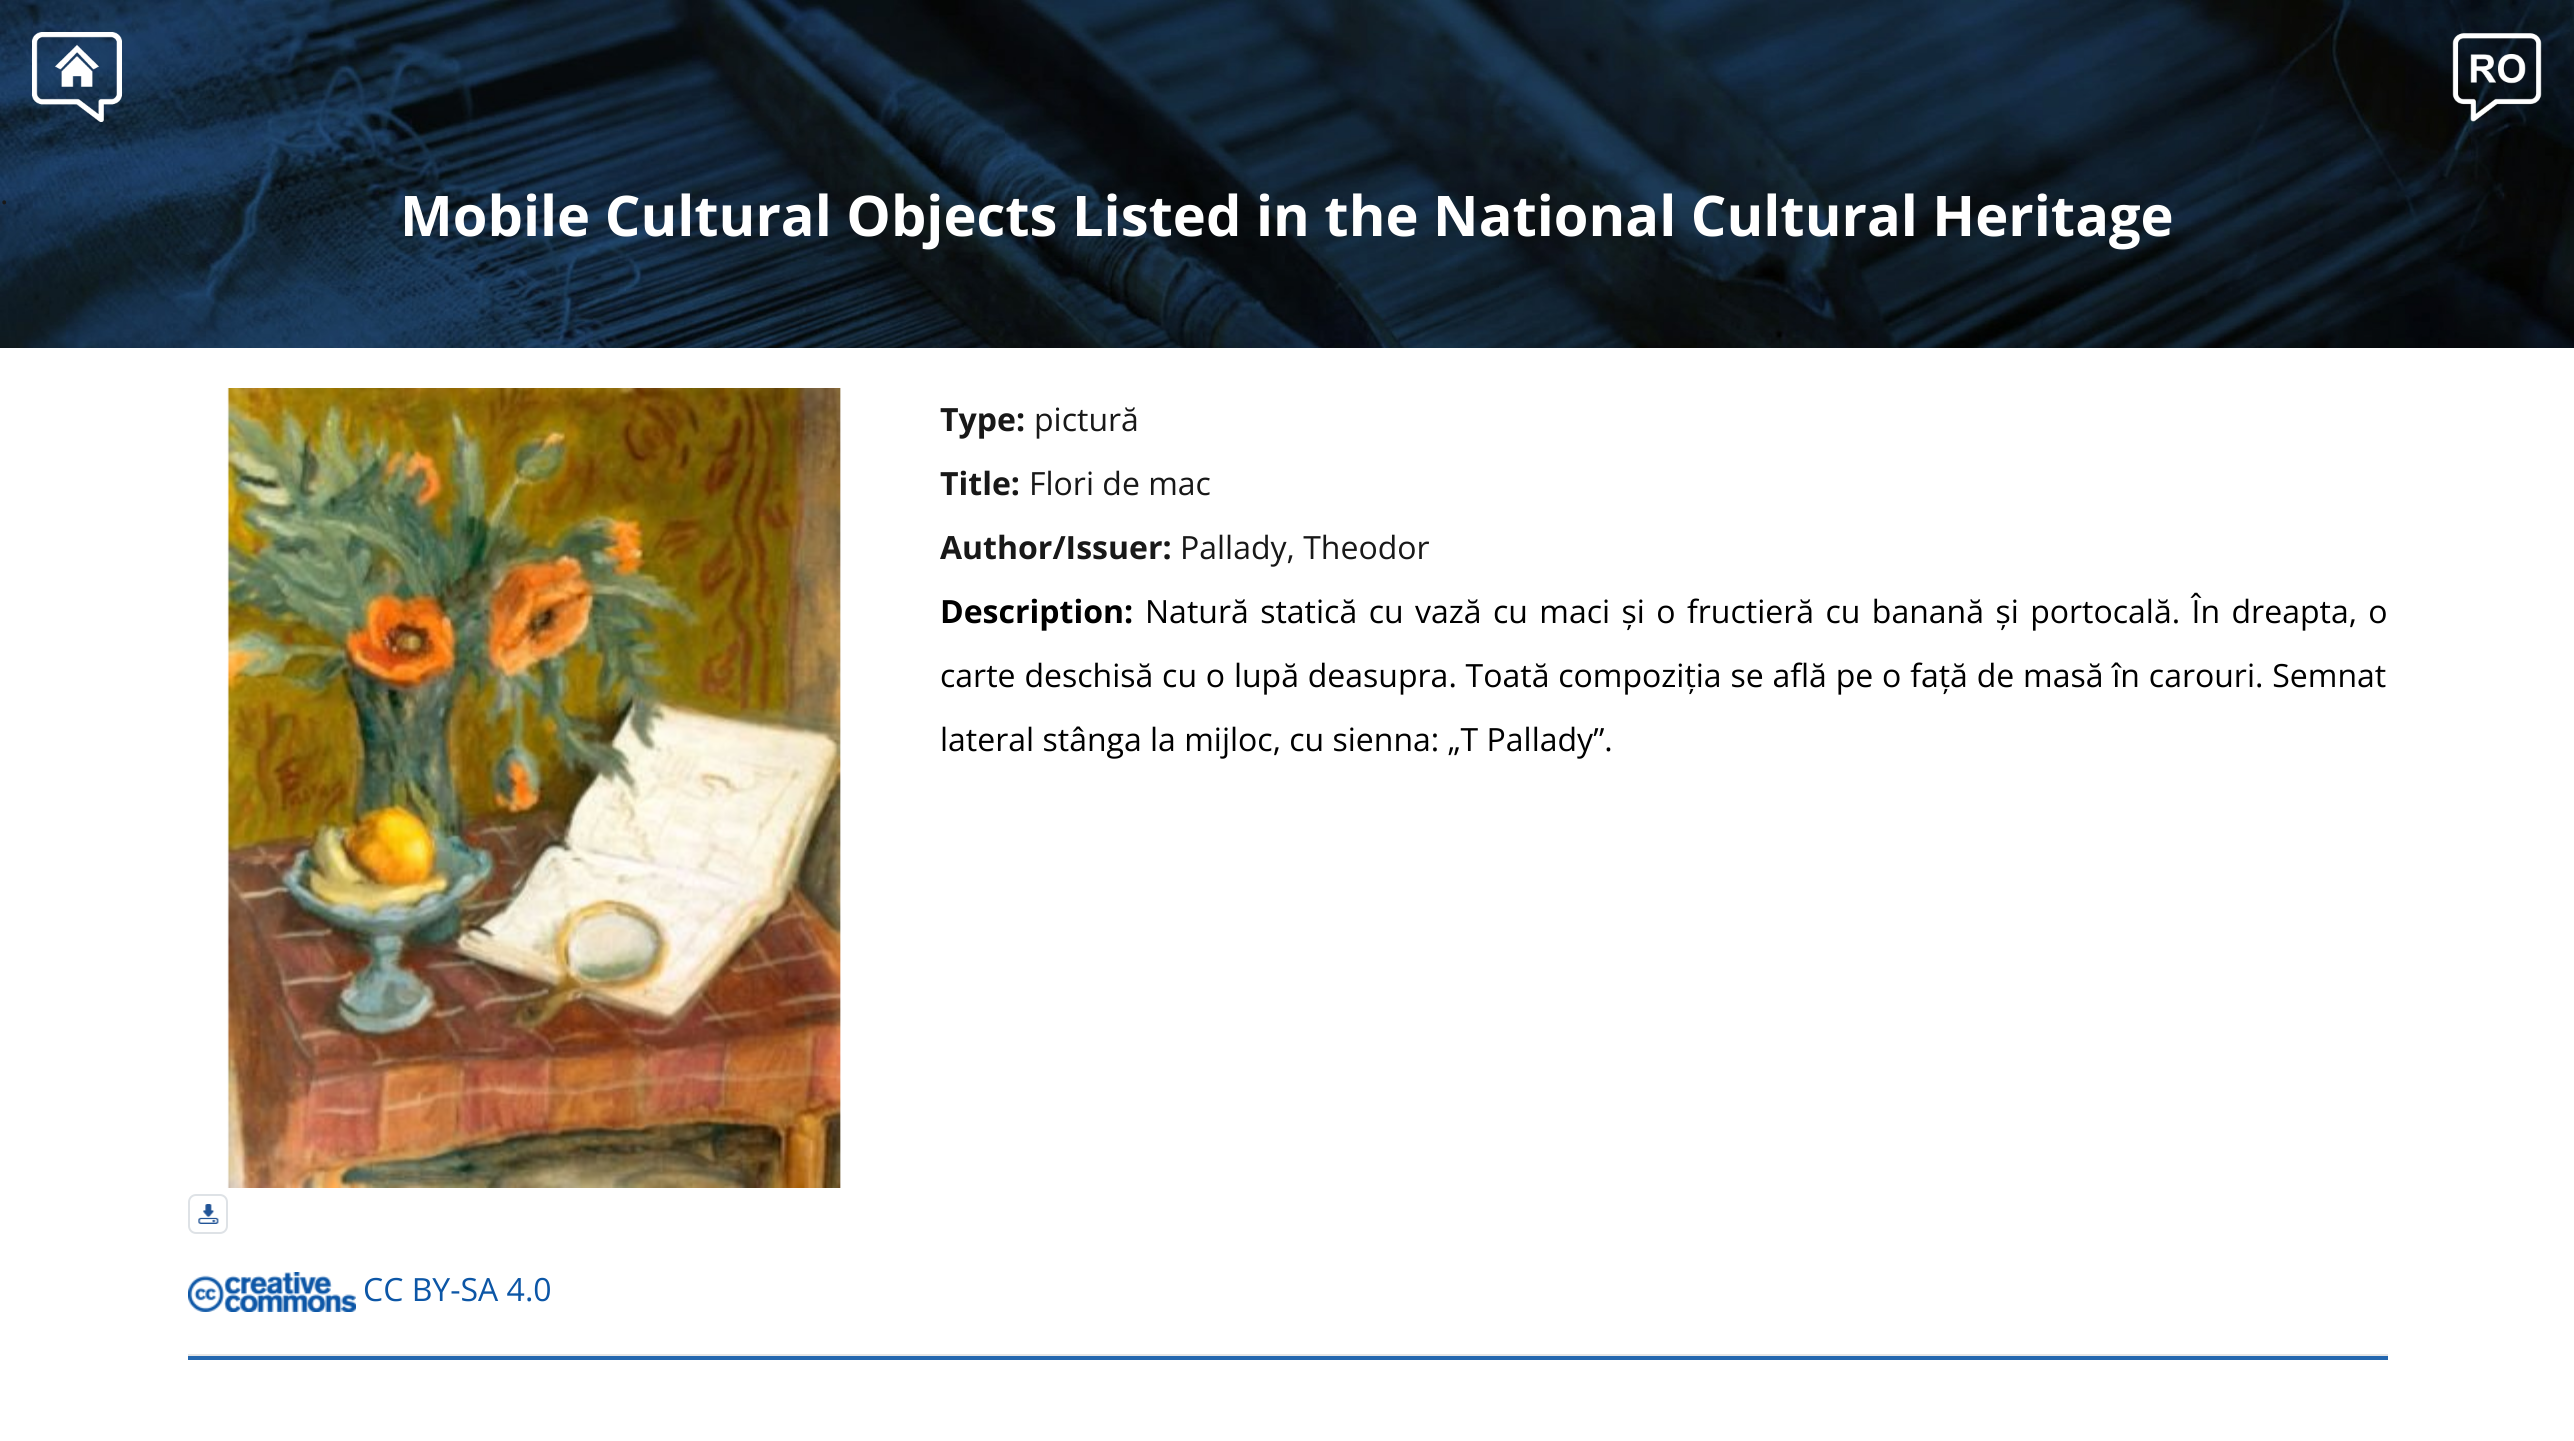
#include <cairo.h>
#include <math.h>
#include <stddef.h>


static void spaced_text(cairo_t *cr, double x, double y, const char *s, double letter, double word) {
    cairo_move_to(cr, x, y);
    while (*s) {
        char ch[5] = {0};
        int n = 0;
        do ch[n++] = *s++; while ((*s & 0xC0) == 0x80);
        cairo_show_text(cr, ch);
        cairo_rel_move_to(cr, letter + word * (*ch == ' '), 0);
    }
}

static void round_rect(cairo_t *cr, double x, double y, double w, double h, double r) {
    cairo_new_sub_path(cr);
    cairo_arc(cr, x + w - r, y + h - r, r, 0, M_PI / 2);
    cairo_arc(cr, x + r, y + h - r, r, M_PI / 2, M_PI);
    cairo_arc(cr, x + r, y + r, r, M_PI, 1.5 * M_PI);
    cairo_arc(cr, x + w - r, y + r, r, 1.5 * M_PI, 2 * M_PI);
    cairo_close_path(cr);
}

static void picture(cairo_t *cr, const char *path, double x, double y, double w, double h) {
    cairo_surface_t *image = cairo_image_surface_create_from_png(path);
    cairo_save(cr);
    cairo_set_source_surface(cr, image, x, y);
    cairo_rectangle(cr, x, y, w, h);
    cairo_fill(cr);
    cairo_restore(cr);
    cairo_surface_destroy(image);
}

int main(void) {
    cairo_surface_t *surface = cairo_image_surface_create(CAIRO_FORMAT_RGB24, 2574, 1441);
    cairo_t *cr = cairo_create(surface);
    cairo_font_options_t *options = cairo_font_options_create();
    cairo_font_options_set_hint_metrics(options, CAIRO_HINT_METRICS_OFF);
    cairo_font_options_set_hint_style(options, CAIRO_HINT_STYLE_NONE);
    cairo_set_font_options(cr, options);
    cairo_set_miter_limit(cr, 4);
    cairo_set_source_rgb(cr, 1, 1, 1);
    cairo_paint(cr);
    picture(cr, "img1.png", 0, 0, 2574, 348);
    picture(cr, "img2.png", 32, 32, 90, 90);
    picture(cr, "img3.png", 2452, 33, 90, 89);
    cairo_select_font_face(cr, "Open Sans", CAIRO_FONT_SLANT_NORMAL, CAIRO_FONT_WEIGHT_NORMAL);
    cairo_set_font_size(cr, 32);
    cairo_set_source_rgb(cr, 0.094, 0.094, 0.094);
    cairo_move_to(cr, 0, 204);
    cairo_show_text(cr, ".");
    cairo_select_font_face(cr, "Open Sans", CAIRO_FONT_SLANT_NORMAL, CAIRO_FONT_WEIGHT_BOLD);
    cairo_set_font_size(cr, 56);
    cairo_set_source_rgb(cr, 1, 1, 1);
    cairo_move_to(cr, 400, 236);
    cairo_show_text(cr, "Mobile Cultural Objects Listed in the National Cultural Heritage");
    cairo_set_font_size(cr, 32);
    cairo_set_source_rgb(cr, 0.094, 0.094, 0.094);
    cairo_move_to(cr, 940, 431);
    cairo_show_text(cr, "Type:");
    cairo_select_font_face(cr, "Open Sans", CAIRO_FONT_SLANT_NORMAL, CAIRO_FONT_WEIGHT_NORMAL);
    cairo_move_to(cr, 1034, 431);
    cairo_show_text(cr, "pictură");
    cairo_select_font_face(cr, "Open Sans", CAIRO_FONT_SLANT_NORMAL, CAIRO_FONT_WEIGHT_BOLD);
    cairo_move_to(cr, 940, 495);
    cairo_show_text(cr, "Title:");
    cairo_select_font_face(cr, "Open Sans", CAIRO_FONT_SLANT_NORMAL, CAIRO_FONT_WEIGHT_NORMAL);
    cairo_move_to(cr, 1029, 495);
    cairo_show_text(cr, "Flori de mac");
    cairo_select_font_face(cr, "Open Sans", CAIRO_FONT_SLANT_NORMAL, CAIRO_FONT_WEIGHT_BOLD);
    cairo_move_to(cr, 940, 559);
    cairo_show_text(cr, "Author/Issuer:");
    cairo_select_font_face(cr, "Open Sans", CAIRO_FONT_SLANT_NORMAL, CAIRO_FONT_WEIGHT_NORMAL);
    cairo_move_to(cr, 1180, 559);
    cairo_show_text(cr, "Pallady, Theodor");
    cairo_select_font_face(cr, "Open Sans", CAIRO_FONT_SLANT_NORMAL, CAIRO_FONT_WEIGHT_BOLD);
    cairo_set_source_rgb(cr, 0, 0, 0);
    cairo_move_to(cr, 940, 623);
    cairo_show_text(cr, "Description:");
    cairo_select_font_face(cr, "Open Sans", CAIRO_FONT_SLANT_NORMAL, CAIRO_FONT_WEIGHT_NORMAL);
    spaced_text(cr, 1145, 623, "Natură statică cu vază cu maci și o fructieră cu banană și portocală. În dreapta, o", 0, 3.1);
    spaced_text(cr, 940, 687, "carte deschisă cu o lupă deasupra. Toată compoziția se află pe o față de masă în carouri. Semnat", 0, 0.5);
    cairo_move_to(cr, 940, 751);
    cairo_show_text(cr, "lateral stânga la mijloc, cu sienna: „T Pallady”.");
    picture(cr, "img4.png", 227, 388, 614, 800);
    round_rect(cr, 189, 1195, 38, 38, 7);
    cairo_set_source_rgb(cr, 0.871, 0.886, 0.902);
    cairo_stroke(cr);
    picture(cr, "img5.png", 198, 1204, 21, 20);
    picture(cr, "img6.png", 188, 1272, 168, 40);
    cairo_set_source_rgb(cr, 0.047, 0.337, 0.651);
    cairo_move_to(cr, 363, 1301);
    cairo_show_text(cr, "CC BY-SA 4.0");
    cairo_set_source_rgb(cr, 0.902, 0.902, 0.902);
    cairo_rectangle(cr, 188, 1354, 2200, 2);
    cairo_fill(cr);
    cairo_set_source_rgb(cr, 0.141, 0.404, 0.686);
    cairo_rectangle(cr, 188, 1356, 2200, 4);
    cairo_fill(cr);
    cairo_surface_write_to_png(surface, "page.png");
    cairo_font_options_destroy(options);
    cairo_destroy(cr);
    cairo_surface_destroy(surface);
    return 0;
}
